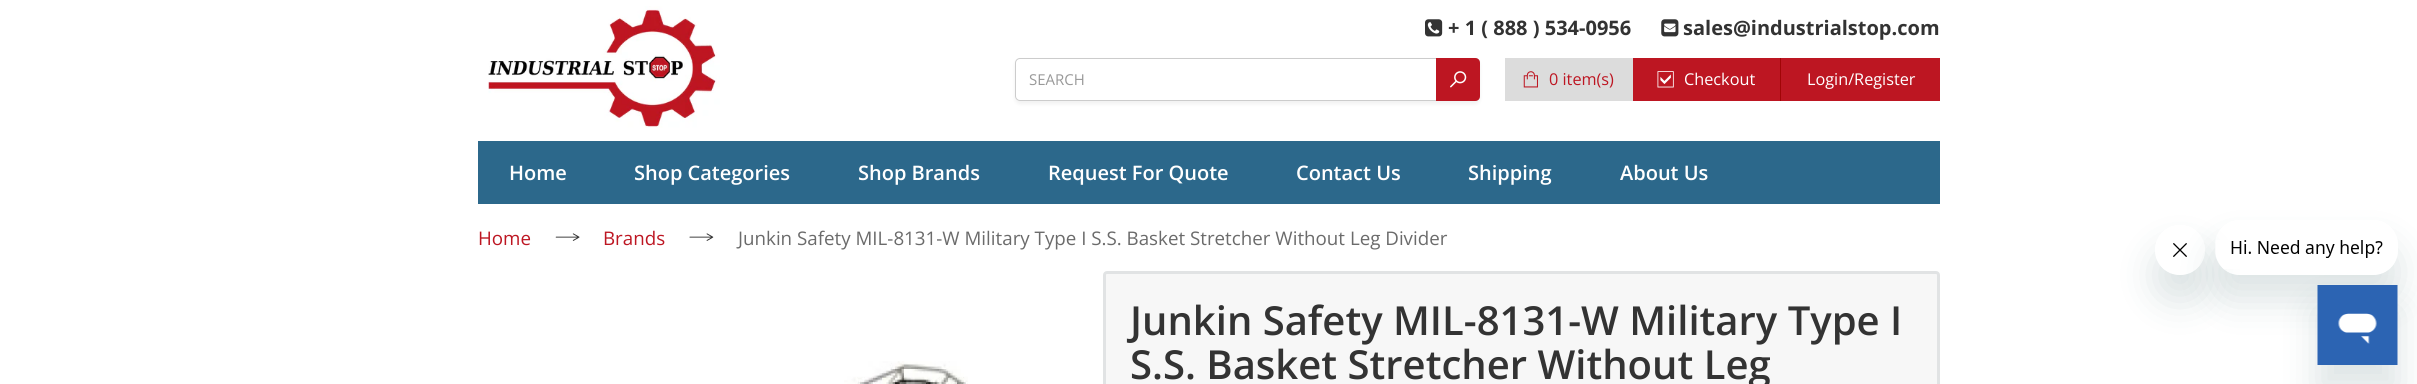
#include <cairo.h>
#include <math.h>
#include <stddef.h>


static void round_rect(cairo_t *cr, double x, double y, double w, double h, double r) {
    cairo_new_sub_path(cr);
    cairo_arc(cr, x + w - r, y + h - r, r, 0, M_PI / 2);
    cairo_arc(cr, x + r, y + h - r, r, M_PI / 2, M_PI);
    cairo_arc(cr, x + r, y + r, r, M_PI, 1.5 * M_PI);
    cairo_arc(cr, x + w - r, y + r, r, 1.5 * M_PI, 2 * M_PI);
    cairo_close_path(cr);
}

static void shadow(cairo_t *cr, double x, double y, double w, double h, double r, double blur, double alpha) {
    cairo_push_group_with_content(cr, CAIRO_CONTENT_ALPHA);
    cairo_set_operator(cr, CAIRO_OPERATOR_SOURCE);
    for (int i = 15; i >= -15 && fmin(w, h) + blur * i / 3 > 0; i -= 2) {
        double e = blur * i / 6;
        cairo_set_source_rgba(cr, 0, 0, 0, alpha * erfc((i - 1) / 8.5) / 2);
        round_rect(cr, x - e, y - e, w + 2 * e, h + 2 * e, fmax(0, fmin(r + e + blur * .6, fmin(w, h) / 2 + e)));
        cairo_fill(cr);
    }
    cairo_pattern_t *soft = cairo_pop_group(cr);
    cairo_mask(cr, soft);
    cairo_pattern_destroy(soft);
}

static void picture(cairo_t *cr, const char *path, double x, double y, double w, double h) {
    cairo_surface_t *image = cairo_image_surface_create_from_png(path);
    cairo_save(cr);
    cairo_set_source_surface(cr, image, x, y);
    cairo_rectangle(cr, x, y, w, h);
    cairo_fill(cr);
    cairo_restore(cr);
    cairo_surface_destroy(image);
}

int main(void) {
    cairo_surface_t *surface = cairo_image_surface_create(CAIRO_FORMAT_RGB24, 2417, 384);
    cairo_t *cr = cairo_create(surface);
    cairo_font_options_t *options = cairo_font_options_create();
    cairo_font_options_set_hint_metrics(options, CAIRO_HINT_METRICS_OFF);
    cairo_font_options_set_hint_style(options, CAIRO_HINT_STYLE_NONE);
    cairo_set_font_options(cr, options);
    cairo_set_miter_limit(cr, 4);
    cairo_set_source_rgb(cr, 1, 1, 1);
    cairo_paint(cr);
    picture(cr, "img1.png", 488, 6, 232, 122);
    picture(cr, "img2.png", 1425, 19, 18, 18);
    cairo_select_font_face(cr, "Open Sans", CAIRO_FONT_SLANT_NORMAL, CAIRO_FONT_WEIGHT_BOLD);
    cairo_set_font_size(cr, 20);
    cairo_set_source_rgb(cr, 0.2, 0.2, 0.2);
    cairo_move_to(cr, 1448, 35);
    cairo_show_text(cr, "+ 1 ( 888 ) 534-0956");
    picture(cr, "img3.png", 1661, 19, 18, 18);
    cairo_move_to(cr, 1683, 35);
    cairo_show_text(cr, "sales@industrialstop.com");
    cairo_save(cr);
    cairo_set_fill_rule(cr, CAIRO_FILL_RULE_EVEN_ODD);
    cairo_new_path(cr);
    cairo_move_to(cr, 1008, 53);
    cairo_line_to(cr, 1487, 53);
    cairo_line_to(cr, 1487, 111);
    cairo_line_to(cr, 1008, 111);
    cairo_close_path(cr);
    cairo_move_to(cr, 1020, 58);
    cairo_line_to(cr, 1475, 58);
    cairo_curve_to(cr, 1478, 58, 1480, 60, 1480, 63);
    cairo_line_to(cr, 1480, 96);
    cairo_curve_to(cr, 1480, 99, 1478, 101, 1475, 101);
    cairo_line_to(cr, 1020, 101);
    cairo_curve_to(cr, 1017, 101, 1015, 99, 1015, 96);
    cairo_line_to(cr, 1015, 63);
    cairo_curve_to(cr, 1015, 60, 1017, 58, 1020, 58);
    cairo_close_path(cr);
    cairo_clip(cr);
    cairo_set_source_rgb(cr, 0.502, 0.502, 0.502);
    shadow(cr, 1015, 60, 465, 44, 5, 2, 0.11);
    cairo_restore(cr);
    round_rect(cr, 1015.5, 58.5, 464, 42, 4.5);
    cairo_set_source_rgba(cr, 0.502, 0.502, 0.502, 0.4);
    cairo_set_line_width(cr, 1);
    cairo_stroke(cr);
    cairo_select_font_face(cr, "Open Sans", CAIRO_FONT_SLANT_NORMAL, CAIRO_FONT_WEIGHT_NORMAL);
    cairo_set_font_size(cr, 15);
    cairo_set_source_rgb(cr, 0.6, 0.6, 0.6);
    cairo_move_to(cr, 1029, 85);
    cairo_show_text(cr, "SEARCH");
    cairo_set_source_rgb(cr, 0.741, 0.086, 0.133);
    cairo_new_path(cr);
    cairo_move_to(cr, 1436, 58);
    cairo_line_to(cr, 1475, 58);
    cairo_curve_to(cr, 1478, 58, 1480, 60, 1480, 63);
    cairo_line_to(cr, 1480, 96);
    cairo_curve_to(cr, 1480, 99, 1478, 101, 1475, 101);
    cairo_line_to(cr, 1436, 101);
    cairo_close_path(cr);
    cairo_fill(cr);
    picture(cr, "img4.png", 1450, 71, 17, 17);
    cairo_set_source_rgb(cr, 0.863, 0.863, 0.863);
    cairo_rectangle(cr, 1505, 58, 128, 43);
    cairo_fill(cr);
    picture(cr, "img5.png", 1523, 71, 15, 17);
    cairo_set_font_size(cr, 16.25);
    cairo_set_source_rgb(cr, 0.741, 0.086, 0.133);
    cairo_move_to(cr, 1549, 85);
    cairo_show_text(cr, "0 item(s)");
    cairo_rectangle(cr, 1633, 58, 307, 43);
    cairo_fill(cr);
    cairo_set_source_rgb(cr, 0.627, 0.02, 0.027);
    cairo_rectangle(cr, 1780, 58, 1, 43);
    cairo_fill(cr);
    picture(cr, "img6.png", 1657, 71, 17, 17);
    cairo_set_source_rgb(cr, 1, 1, 1);
    cairo_move_to(cr, 1684, 85);
    cairo_show_text(cr, "Checkout");
    cairo_move_to(cr, 1807, 85);
    cairo_show_text(cr, "Login/Register");
    cairo_set_source_rgb(cr, 0.173, 0.408, 0.545);
    cairo_rectangle(cr, 478, 141, 1462, 63);
    cairo_fill(cr);
    cairo_select_font_face(cr, "Open Sans SemiBold", CAIRO_FONT_SLANT_NORMAL, CAIRO_FONT_WEIGHT_NORMAL);
    cairo_set_font_size(cr, 20);
    cairo_set_source_rgb(cr, 1, 1, 1);
    cairo_move_to(cr, 509, 180);
    cairo_show_text(cr, "Home");
    cairo_move_to(cr, 634, 180);
    cairo_show_text(cr, "Shop Categories");
    cairo_move_to(cr, 858, 180);
    cairo_show_text(cr, "Shop Brands");
    cairo_move_to(cr, 1048, 180);
    cairo_show_text(cr, "Request For Quote");
    cairo_move_to(cr, 1296, 180);
    cairo_show_text(cr, "Contact Us");
    cairo_move_to(cr, 1468, 180);
    cairo_show_text(cr, "Shipping");
    cairo_move_to(cr, 1620, 180);
    cairo_show_text(cr, "About Us");
    cairo_select_font_face(cr, "Open Sans", CAIRO_FONT_SLANT_NORMAL, CAIRO_FONT_WEIGHT_NORMAL);
    cairo_set_font_size(cr, 18.75);
    cairo_set_source_rgb(cr, 0.741, 0.086, 0.133);
    cairo_move_to(cr, 478, 245);
    cairo_show_text(cr, "Home");
    picture(cr, "img7.png", 555, 233, 25, 8);
    cairo_move_to(cr, 603, 245);
    cairo_show_text(cr, "Brands");
    picture(cr, "img8.png", 689, 233, 25, 8);
    cairo_set_source_rgb(cr, 0.42, 0.42, 0.42);
    cairo_move_to(cr, 738, 245);
    cairo_show_text(cr, "Junkin Safety MIL-8131-W Military Type I S.S. Basket Stretcher Without Leg Divider");
    picture(cr, "img9.png", 844, 361, 124, 23);
    cairo_set_source_rgb(cr, 0.965, 0.965, 0.965);
    round_rect(cr, 1104.5, 272.5, 834, 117, 2.5);
    cairo_fill_preserve(cr);
    cairo_set_source_rgb(cr, 0.882, 0.89, 0.894);
    cairo_set_line_width(cr, 3);
    cairo_stroke(cr);
    cairo_select_font_face(cr, "Open Sans SemiBold", CAIRO_FONT_SLANT_NORMAL, CAIRO_FONT_WEIGHT_NORMAL);
    cairo_set_font_size(cr, 40);
    cairo_set_source_rgb(cr, 0.2, 0.2, 0.2);
    cairo_move_to(cr, 1130, 335);
    cairo_show_text(cr, "Junkin Safety MIL-8131-W Military Type I");
    cairo_move_to(cr, 1130, 379);
    cairo_show_text(cr, "S.S. Basket Stretcher Without Leg");
    cairo_save(cr);
    cairo_set_fill_rule(cr, CAIRO_FILL_RULE_EVEN_ODD);
    cairo_new_path(cr);
    cairo_move_to(cr, 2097, 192);
    cairo_line_to(cr, 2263, 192);
    cairo_line_to(cr, 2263, 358);
    cairo_line_to(cr, 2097, 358);
    cairo_close_path(cr);
    cairo_move_to(cr, 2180, 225);
    cairo_curve_to(cr, 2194, 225, 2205, 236, 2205, 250);
    cairo_curve_to(cr, 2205, 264, 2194, 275, 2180, 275);
    cairo_curve_to(cr, 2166, 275, 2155, 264, 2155, 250);
    cairo_curve_to(cr, 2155, 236, 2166, 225, 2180, 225);
    cairo_close_path(cr);
    cairo_clip(cr);
    cairo_set_source_rgb(cr, 0.09, 0.286, 0.302);
    shadow(cr, 2155, 250, 50, 50, 25, 19, 0.15);
    cairo_restore(cr);
    picture(cr, "img11.png", 2173, 243, 14, 14);
    cairo_save(cr);
    cairo_set_fill_rule(cr, CAIRO_FILL_RULE_EVEN_ODD);
    cairo_new_path(cr);
    cairo_move_to(cr, 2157, 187);
    cairo_line_to(cr, 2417, 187);
    cairo_line_to(cr, 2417, 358);
    cairo_line_to(cr, 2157, 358);
    cairo_close_path(cr);
    cairo_move_to(cr, 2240, 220);
    cairo_line_to(cr, 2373, 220);
    cairo_curve_to(cr, 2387, 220, 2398, 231, 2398, 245);
    cairo_line_to(cr, 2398, 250);
    cairo_curve_to(cr, 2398, 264, 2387, 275, 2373, 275);
    cairo_line_to(cr, 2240, 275);
    cairo_curve_to(cr, 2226, 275, 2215, 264, 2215, 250);
    cairo_line_to(cr, 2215, 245);
    cairo_curve_to(cr, 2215, 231, 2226, 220, 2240, 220);
    cairo_close_path(cr);
    cairo_clip(cr);
    cairo_set_source_rgb(cr, 0.09, 0.286, 0.302);
    shadow(cr, 2215, 245, 183, 55, 25, 19, 0.15);
    cairo_restore(cr);
    picture(cr, "img10.png", 2216, 240, 167, 29);
    cairo_set_source_rgb(cr, 0.09, 0.286, 0.302);
    shadow(cr, 2318, 310, 80, 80, 0, 19, 0.15);
    picture(cr, "img12.png", 2317, 285, 81, 80);
    cairo_surface_write_to_png(surface, "page.png");
    cairo_font_options_destroy(options);
    cairo_destroy(cr);
    cairo_surface_destroy(surface);
    return 0;
}
